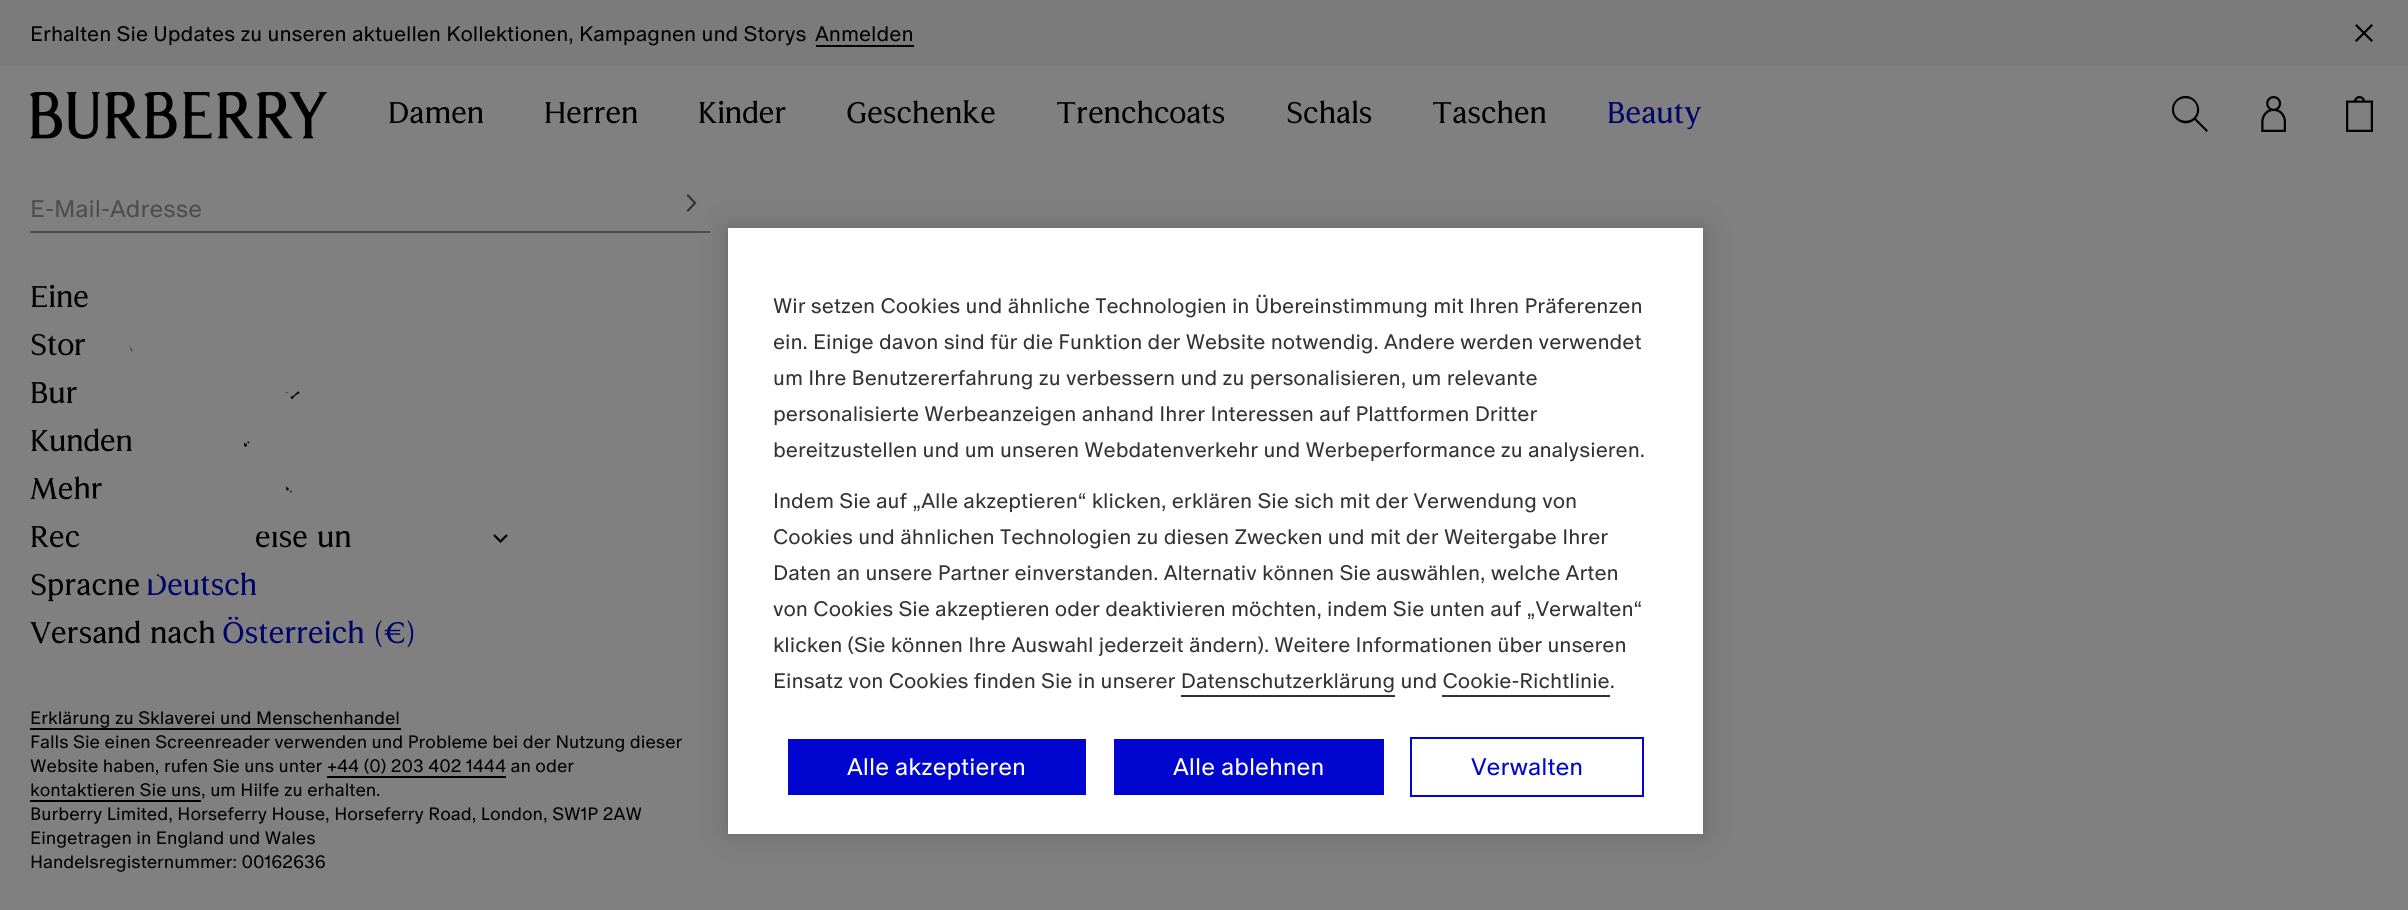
#include <cairo.h>
#include <math.h>
#include <stddef.h>


static void round_rect(cairo_t *cr, double x, double y, double w, double h, double r) {
    cairo_new_sub_path(cr);
    cairo_arc(cr, x + w - r, y + h - r, r, 0, M_PI / 2);
    cairo_arc(cr, x + r, y + h - r, r, M_PI / 2, M_PI);
    cairo_arc(cr, x + r, y + r, r, M_PI, 1.5 * M_PI);
    cairo_arc(cr, x + w - r, y + r, r, 1.5 * M_PI, 2 * M_PI);
    cairo_close_path(cr);
}

static void shadow(cairo_t *cr, double x, double y, double w, double h, double r, double blur, double alpha) {
    cairo_push_group_with_content(cr, CAIRO_CONTENT_ALPHA);
    cairo_set_operator(cr, CAIRO_OPERATOR_SOURCE);
    for (int i = 15; i >= -15 && fmin(w, h) + blur * i / 3 > 0; i -= 2) {
        double e = blur * i / 6;
        cairo_set_source_rgba(cr, 0, 0, 0, alpha * erfc((i - 1) / 8.5) / 2);
        round_rect(cr, x - e, y - e, w + 2 * e, h + 2 * e, fmax(0, fmin(r + e + blur * .6, fmin(w, h) / 2 + e)));
        cairo_fill(cr);
    }
    cairo_pattern_t *soft = cairo_pop_group(cr);
    cairo_mask(cr, soft);
    cairo_pattern_destroy(soft);
}

static void picture(cairo_t *cr, const char *path, double x, double y, double w, double h) {
    cairo_surface_t *image = cairo_image_surface_create_from_png(path);
    cairo_save(cr);
    cairo_set_source_surface(cr, image, x, y);
    cairo_rectangle(cr, x, y, w, h);
    cairo_fill(cr);
    cairo_restore(cr);
    cairo_surface_destroy(image);
}

int main(void) {
    cairo_surface_t *surface = cairo_image_surface_create(CAIRO_FORMAT_RGB24, 2408, 910);
    cairo_t *cr = cairo_create(surface);
    cairo_font_options_t *options = cairo_font_options_create();
    cairo_font_options_set_hint_metrics(options, CAIRO_HINT_METRICS_OFF);
    cairo_font_options_set_hint_style(options, CAIRO_HINT_STYLE_NONE);
    cairo_set_font_options(cr, options);
    cairo_set_miter_limit(cr, 4);
    cairo_set_source_rgb(cr, 0.502, 0.502, 0.502);
    cairo_paint(cr);
    cairo_set_source_rgb(cr, 0.482, 0.482, 0.482);
    cairo_rectangle(cr, 0, 0, 2408, 66);
    cairo_fill(cr);
    cairo_select_font_face(cr, "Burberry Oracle", CAIRO_FONT_SLANT_NORMAL, CAIRO_FONT_WEIGHT_NORMAL);
    cairo_set_font_size(cr, 21);
    cairo_set_source_rgb(cr, 0, 0, 0);
    cairo_move_to(cr, 30, 41);
    cairo_show_text(cr, "Erhalten Sie Updates zu unseren aktuellen Kollektionen, Kampagnen und Storys");
    cairo_move_to(cr, 815, 41);
    cairo_show_text(cr, "Anmelden");
    cairo_rectangle(cr, 816, 45, 98, 2);
    cairo_fill(cr);
    picture(cr, "img1.png", 2355, 24, 18, 18);
    picture(cr, "img2.png", 30, 92, 297, 47);
    cairo_select_font_face(cr, "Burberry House", CAIRO_FONT_SLANT_NORMAL, CAIRO_FONT_WEIGHT_NORMAL);
    cairo_set_font_size(cr, 30);
    cairo_move_to(cr, 388, 123);
    cairo_show_text(cr, "Damen");
    cairo_move_to(cr, 544, 123);
    cairo_show_text(cr, "Herren");
    cairo_move_to(cr, 698, 123);
    cairo_show_text(cr, "Kinder");
    cairo_move_to(cr, 846, 123);
    cairo_show_text(cr, "Geschenke");
    cairo_move_to(cr, 1056, 123);
    cairo_show_text(cr, "Trenchcoats");
    cairo_move_to(cr, 1286, 123);
    cairo_show_text(cr, "Schals");
    cairo_move_to(cr, 1432, 123);
    cairo_show_text(cr, "Taschen");
    cairo_set_source_rgb(cr, 0, 0.012, 0.408);
    cairo_move_to(cr, 1607, 123);
    cairo_show_text(cr, "Beauty");
    cairo_save(cr);
    cairo_rectangle(cr, 2172, 96, 36, 36);
    cairo_clip(cr);
    cairo_set_source_rgb(cr, 0, 0, 0);
    cairo_set_fill_rule(cr, CAIRO_FILL_RULE_EVEN_ODD);
    cairo_new_path(cr);
    cairo_move_to(cr, 2197, 109.5);
    cairo_curve_to(cr, 2197, 124.5, 2174.5, 124.5, 2174, 109.5);
    cairo_curve_to(cr, 2174, 94.5, 2197, 94.5, 2197, 109.5);
    cairo_close_path(cr);
    cairo_move_to(cr, 2194.5, 120);
    cairo_curve_to(cr, 2181.5, 131, 2163.5, 112.5, 2176, 100);
    cairo_curve_to(cr, 2188.5, 87.5, 2206.5, 105.5, 2196, 118.5);
    cairo_line_to(cr, 2208, 130.5);
    cairo_line_to(cr, 2206.5, 132);
    cairo_close_path(cr);
    cairo_fill(cr);
    cairo_restore(cr);
    picture(cr, "img3.png", 2261, 96, 25, 36);
    picture(cr, "img4.png", 2346, 96, 27, 36);
    cairo_set_source_rgb(cr, 0.2, 0.2, 0.2);
    cairo_new_path(cr);
    cairo_move_to(cr, 688, 194);
    cairo_line_to(cr, 686.5, 195.5);
    cairo_line_to(cr, 693.5, 203);
    cairo_line_to(cr, 686.5, 210.5);
    cairo_line_to(cr, 688, 212);
    cairo_line_to(cr, 696.5, 203);
    cairo_close_path(cr);
    cairo_fill(cr);
    cairo_set_source_rgb(cr, 0.302, 0.302, 0.302);
    cairo_rectangle(cr, 30, 231, 680, 2);
    cairo_fill(cr);
    cairo_select_font_face(cr, "Burberry Oracle", CAIRO_FONT_SLANT_NORMAL, CAIRO_FONT_WEIGHT_NORMAL);
    cairo_set_font_size(cr, 24);
    cairo_move_to(cr, 30, 217);
    cairo_show_text(cr, "E-Mail-Adresse");
    cairo_select_font_face(cr, "Burberry House", CAIRO_FONT_SLANT_NORMAL, CAIRO_FONT_WEIGHT_NORMAL);
    cairo_set_font_size(cr, 30);
    cairo_set_source_rgb(cr, 0, 0, 0);
    cairo_move_to(cr, 30, 307);
    cairo_show_text(cr, "Eine");
    cairo_move_to(cr, 30, 355);
    cairo_show_text(cr, "Stor");
    cairo_new_path(cr);
    cairo_move_to(cr, 125.5, 343.5);
    cairo_line_to(cr, 132, 350);
    cairo_line_to(cr, 138.5, 343.5);
    cairo_set_line_width(cr, 2.2);
    cairo_stroke(cr);
    cairo_move_to(cr, 30, 403);
    cairo_show_text(cr, "Bur");
    cairo_new_path(cr);
    cairo_move_to(cr, 286, 392);
    cairo_line_to(cr, 292.5, 398);
    cairo_line_to(cr, 299, 392);
    cairo_move_to(cr, 239, 439);
    cairo_line_to(cr, 245.5, 445.5);
    cairo_line_to(cr, 251.5, 439);
    cairo_stroke(cr);
    cairo_move_to(cr, 30, 451);
    cairo_show_text(cr, "Kunden");
    cairo_move_to(cr, 30, 499);
    cairo_show_text(cr, "Mehr");
    cairo_new_path(cr);
    cairo_move_to(cr, 285, 486.5);
    cairo_line_to(cr, 291.5, 493);
    cairo_line_to(cr, 297.5, 486.5);
    cairo_stroke(cr);
    cairo_move_to(cr, 30, 547);
    cairo_show_text(cr, "Rec");
    cairo_move_to(cr, 255, 547);
    cairo_show_text(cr, "eise un");
    cairo_new_path(cr);
    cairo_move_to(cr, 494, 535);
    cairo_line_to(cr, 500.5, 541.5);
    cairo_line_to(cr, 507, 535);
    cairo_stroke(cr);
    cairo_move_to(cr, 30, 595);
    cairo_show_text(cr, "Sprache");
    cairo_set_source_rgb(cr, 0, 0.012, 0.408);
    cairo_move_to(cr, 146, 595);
    cairo_show_text(cr, "Deutsch");
    cairo_set_source_rgb(cr, 0, 0, 0);
    cairo_move_to(cr, 30, 643);
    cairo_show_text(cr, "Versand nach");
    cairo_save(cr);
    cairo_rectangle(cr, 222, 617, 192, 36);
    cairo_clip(cr);
    cairo_set_source_rgb(cr, 0, 0.012, 0.408);
    cairo_move_to(cr, 222, 643);
    cairo_show_text(cr, "Österreich (€)");
    cairo_restore(cr);
    cairo_select_font_face(cr, "Burberry Oracle", CAIRO_FONT_SLANT_NORMAL, CAIRO_FONT_WEIGHT_NORMAL);
    cairo_set_font_size(cr, 18);
    cairo_move_to(cr, 30, 724);
    cairo_show_text(cr, "Erklärung zu Sklaverei und Menschenhandel");
    cairo_rectangle(cr, 30, 728, 371, 2);
    cairo_fill(cr);
    cairo_move_to(cr, 30, 748);
    cairo_show_text(cr, "Falls Sie einen Screenreader verwenden und Probleme bei der Nutzung dieser");
    cairo_move_to(cr, 30, 772);
    cairo_show_text(cr, "Website haben, rufen Sie uns unter +44 (0) 203 402 1444 an oder");
    cairo_rectangle(cr, 327, 776, 179, 2);
    cairo_fill(cr);
    cairo_move_to(cr, 30, 796);
    cairo_show_text(cr, "kontaktieren Sie uns, um Hilfe zu erhalten.");
    cairo_rectangle(cr, 30, 800, 171, 2);
    cairo_fill(cr);
    cairo_move_to(cr, 30, 820);
    cairo_show_text(cr, "Burberry Limited, Horseferry House, Horseferry Road, London, SW1P 2AW");
    cairo_move_to(cr, 30, 844);
    cairo_show_text(cr, "Eingetragen in England und Wales");
    cairo_move_to(cr, 30, 868);
    cairo_show_text(cr, "Handelsregisternummer: 00162636");
    picture(cr, "img5.png", 77, 284, 404, 297);
    cairo_set_source_rgb(cr, 0, 0, 0);
    shadow(cr, 728, 228, 975, 606, 0, 13.5, 0.2);
    cairo_set_source_rgb(cr, 1, 1, 1);
    cairo_rectangle(cr, 728, 228, 975, 606);
    cairo_fill(cr);
    cairo_set_font_size(cr, 21);
    cairo_set_source_rgb(cr, 0.2, 0.2, 0.2);
    cairo_move_to(cr, 773, 313);
    cairo_show_text(cr, "Wir setzen Cookies und ähnliche Technologien in Übereinstimmung mit Ihren Präferenzen");
    cairo_move_to(cr, 773, 349);
    cairo_show_text(cr, "ein. Einige davon sind für die Funktion der Website notwendig. Andere werden verwendet");
    cairo_move_to(cr, 773, 385);
    cairo_show_text(cr, "um Ihre Benutzererfahrung zu verbessern und zu personalisieren, um relevante");
    cairo_move_to(cr, 773, 421);
    cairo_show_text(cr, "personalisierte Werbeanzeigen anhand Ihrer Interessen auf Plattformen Dritter");
    cairo_move_to(cr, 773, 457);
    cairo_show_text(cr, "bereitzustellen und um unseren Webdatenverkehr und Werbeperformance zu analysieren.");
    cairo_move_to(cr, 773, 508);
    cairo_show_text(cr, "Indem Sie auf „Alle akzeptieren“ klicken, erklären Sie sich mit der Verwendung von");
    cairo_move_to(cr, 773, 544);
    cairo_show_text(cr, "Cookies und ähnlichen Technologien zu diesen Zwecken und mit der Weitergabe Ihrer");
    cairo_move_to(cr, 773, 580);
    cairo_show_text(cr, "Daten an unsere Partner einverstanden. Alternativ können Sie auswählen, welche Arten");
    cairo_move_to(cr, 773, 616);
    cairo_show_text(cr, "von Cookies Sie akzeptieren oder deaktivieren möchten, indem Sie unten auf „Verwalten“");
    cairo_move_to(cr, 773, 652);
    cairo_show_text(cr, "klicken (Sie können Ihre Auswahl jederzeit ändern). Weitere Informationen über unseren");
    cairo_move_to(cr, 773, 688);
    cairo_show_text(cr, "Einsatz von Cookies finden Sie in unserer Datenschutzerklärung und Cookie-Richtlinie.");
    cairo_rectangle(cr, 1181, 695, 214, 2);
    cairo_fill(cr);
    cairo_rectangle(cr, 1442, 695, 168, 2);
    cairo_fill(cr);
    cairo_set_source_rgb(cr, 0, 0.024, 0.812);
    cairo_rectangle(cr, 788, 739, 298, 56);
    cairo_fill(cr);
    cairo_set_font_size(cr, 24);
    cairo_set_source_rgb(cr, 1, 1, 1);
    cairo_move_to(cr, 847, 775);
    cairo_show_text(cr, "Alle akzeptieren");
    cairo_set_source_rgb(cr, 0, 0.024, 0.812);
    cairo_rectangle(cr, 1114, 739, 270, 56);
    cairo_fill(cr);
    cairo_set_source_rgb(cr, 1, 1, 1);
    cairo_move_to(cr, 1173, 775);
    cairo_show_text(cr, "Alle ablehnen");
    cairo_rectangle(cr, 1411, 738, 232, 58);
    cairo_set_source_rgb(cr, 0, 0.024, 0.812);
    cairo_set_line_width(cr, 2);
    cairo_stroke(cr);
    cairo_move_to(cr, 1471, 775);
    cairo_show_text(cr, "Verwalten");
    cairo_surface_write_to_png(surface, "page.png");
    cairo_font_options_destroy(options);
    cairo_destroy(cr);
    cairo_surface_destroy(surface);
    return 0;
}
